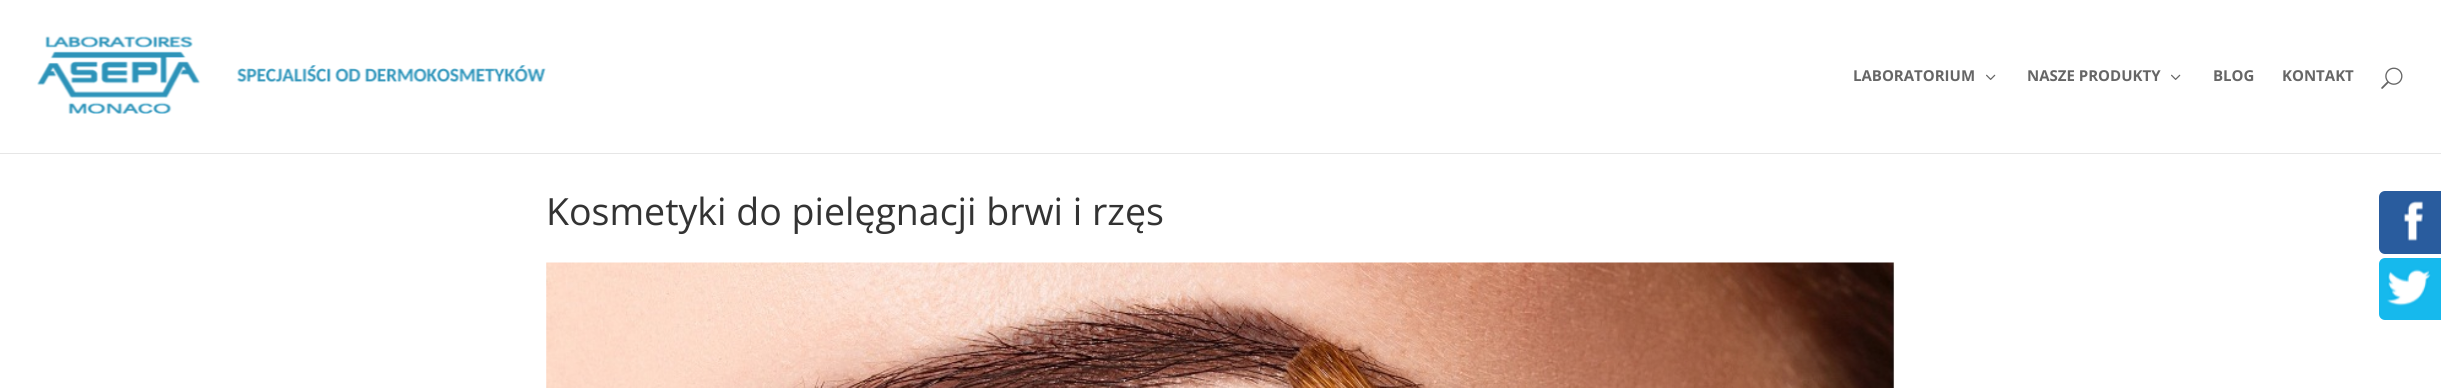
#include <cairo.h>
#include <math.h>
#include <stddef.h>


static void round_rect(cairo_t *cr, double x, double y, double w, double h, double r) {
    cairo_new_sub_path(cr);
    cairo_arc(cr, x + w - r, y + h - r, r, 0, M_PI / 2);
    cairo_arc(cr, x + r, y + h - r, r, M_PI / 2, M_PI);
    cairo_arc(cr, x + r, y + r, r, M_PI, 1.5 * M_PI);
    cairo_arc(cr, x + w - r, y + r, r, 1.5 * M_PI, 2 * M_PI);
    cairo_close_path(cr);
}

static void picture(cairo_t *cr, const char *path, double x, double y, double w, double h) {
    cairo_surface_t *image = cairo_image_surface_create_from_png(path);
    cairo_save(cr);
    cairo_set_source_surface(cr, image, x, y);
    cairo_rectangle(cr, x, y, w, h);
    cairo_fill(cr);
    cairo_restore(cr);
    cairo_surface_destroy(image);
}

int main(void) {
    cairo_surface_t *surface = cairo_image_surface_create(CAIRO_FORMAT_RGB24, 2441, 388);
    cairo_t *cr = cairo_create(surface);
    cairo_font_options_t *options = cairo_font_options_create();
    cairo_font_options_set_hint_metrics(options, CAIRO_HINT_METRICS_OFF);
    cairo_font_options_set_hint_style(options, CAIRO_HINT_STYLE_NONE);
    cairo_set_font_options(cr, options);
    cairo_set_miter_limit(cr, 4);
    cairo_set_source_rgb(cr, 1, 1, 1);
    cairo_paint(cr);
    cairo_set_source_rgb(cr, 0.902, 0.902, 0.902);
    cairo_rectangle(cr, 0, 153, 2441, 1);
    cairo_fill(cr);
    picture(cr, "img1.png", 37, 36, 509, 78);
    cairo_select_font_face(cr, "Open Sans", CAIRO_FONT_SLANT_NORMAL, CAIRO_FONT_WEIGHT_BOLD);
    cairo_set_font_size(cr, 15);
    cairo_set_source_rgb(cr, 0.4, 0.4, 0.4);
    cairo_move_to(cr, 1853, 81);
    cairo_show_text(cr, "LABORATORIUM");
    picture(cr, "img2.png", 1986, 74, 10, 6);
    cairo_move_to(cr, 2027, 81);
    cairo_show_text(cr, "NASZE PRODUKTY");
    picture(cr, "img2.png", 2171, 74, 10, 6);
    cairo_move_to(cr, 2213, 81);
    cairo_show_text(cr, "BLOG");
    cairo_move_to(cr, 2282, 81);
    cairo_show_text(cr, "KONTAKT");
    picture(cr, "img3.png", 2381, 67, 22, 22);
    cairo_select_font_face(cr, "Open Sans", CAIRO_FONT_SLANT_NORMAL, CAIRO_FONT_WEIGHT_NORMAL);
    cairo_set_font_size(cr, 37.5);
    cairo_set_source_rgb(cr, 0.2, 0.2, 0.2);
    cairo_move_to(cr, 546, 225);
    cairo_show_text(cr, "Kosmetyki do pielęgnacji brwi i rzęs");
    picture(cr, "img4.png", 546, 262, 1349, 126);
    cairo_set_source_rgb(cr, 0.161, 0.361, 0.62);
    round_rect(cr, 2379, 191, 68, 63, 6);
    cairo_fill(cr);
    picture(cr, "img5.png", 2402, 201, 22, 40);
    cairo_set_source_rgb(cr, 0.086, 0.725, 0.929);
    round_rect(cr, 2379, 258, 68, 62, 6);
    cairo_fill(cr);
    picture(cr, "img6.png", 2387, 269, 44, 37);
    cairo_surface_write_to_png(surface, "page.png");
    cairo_font_options_destroy(options);
    cairo_destroy(cr);
    cairo_surface_destroy(surface);
    return 0;
}
